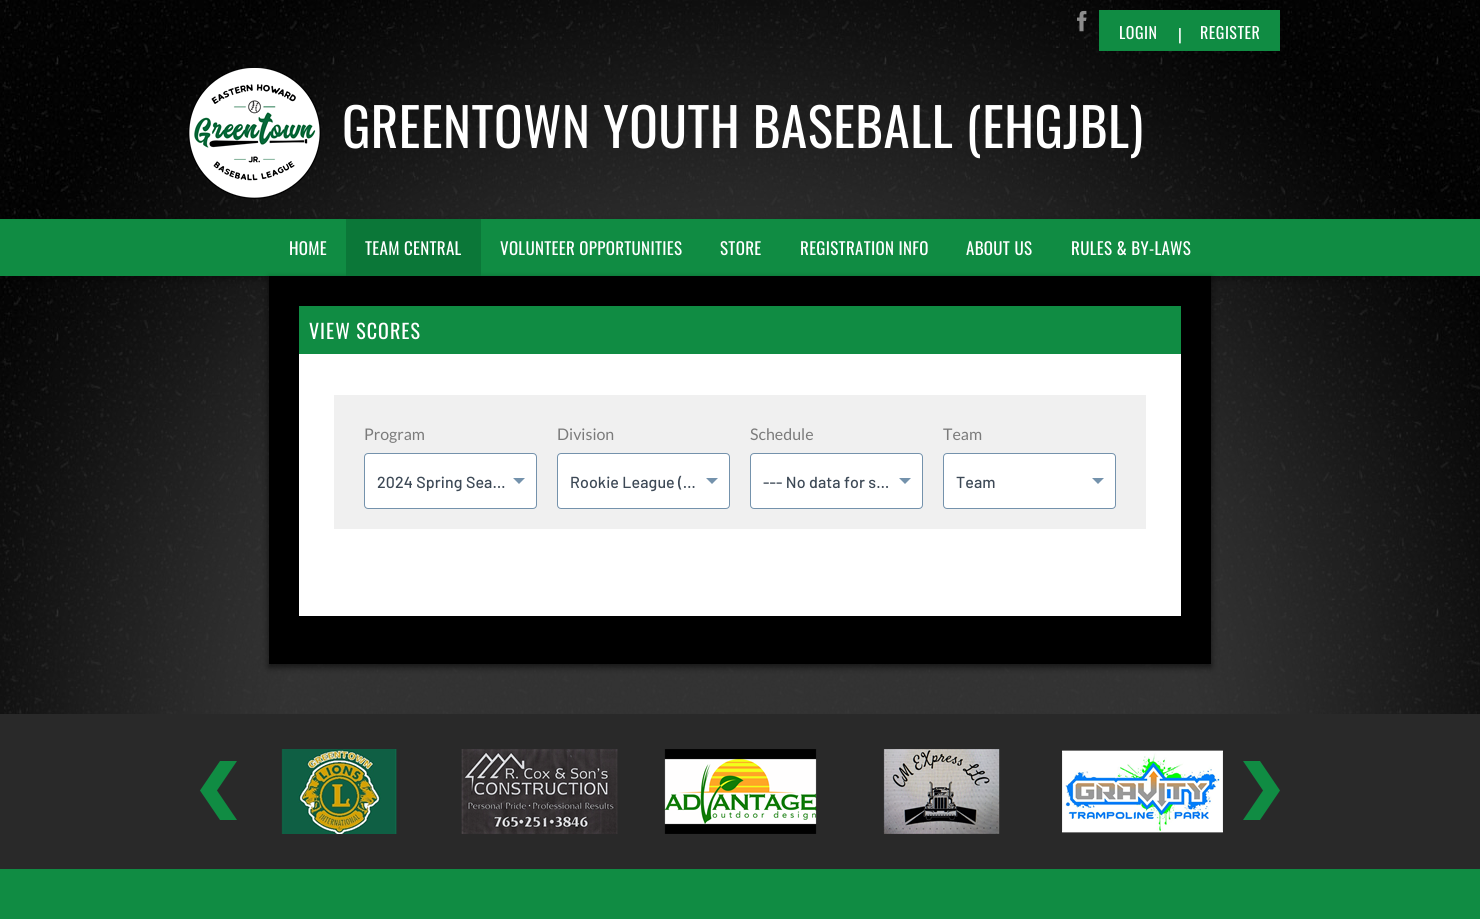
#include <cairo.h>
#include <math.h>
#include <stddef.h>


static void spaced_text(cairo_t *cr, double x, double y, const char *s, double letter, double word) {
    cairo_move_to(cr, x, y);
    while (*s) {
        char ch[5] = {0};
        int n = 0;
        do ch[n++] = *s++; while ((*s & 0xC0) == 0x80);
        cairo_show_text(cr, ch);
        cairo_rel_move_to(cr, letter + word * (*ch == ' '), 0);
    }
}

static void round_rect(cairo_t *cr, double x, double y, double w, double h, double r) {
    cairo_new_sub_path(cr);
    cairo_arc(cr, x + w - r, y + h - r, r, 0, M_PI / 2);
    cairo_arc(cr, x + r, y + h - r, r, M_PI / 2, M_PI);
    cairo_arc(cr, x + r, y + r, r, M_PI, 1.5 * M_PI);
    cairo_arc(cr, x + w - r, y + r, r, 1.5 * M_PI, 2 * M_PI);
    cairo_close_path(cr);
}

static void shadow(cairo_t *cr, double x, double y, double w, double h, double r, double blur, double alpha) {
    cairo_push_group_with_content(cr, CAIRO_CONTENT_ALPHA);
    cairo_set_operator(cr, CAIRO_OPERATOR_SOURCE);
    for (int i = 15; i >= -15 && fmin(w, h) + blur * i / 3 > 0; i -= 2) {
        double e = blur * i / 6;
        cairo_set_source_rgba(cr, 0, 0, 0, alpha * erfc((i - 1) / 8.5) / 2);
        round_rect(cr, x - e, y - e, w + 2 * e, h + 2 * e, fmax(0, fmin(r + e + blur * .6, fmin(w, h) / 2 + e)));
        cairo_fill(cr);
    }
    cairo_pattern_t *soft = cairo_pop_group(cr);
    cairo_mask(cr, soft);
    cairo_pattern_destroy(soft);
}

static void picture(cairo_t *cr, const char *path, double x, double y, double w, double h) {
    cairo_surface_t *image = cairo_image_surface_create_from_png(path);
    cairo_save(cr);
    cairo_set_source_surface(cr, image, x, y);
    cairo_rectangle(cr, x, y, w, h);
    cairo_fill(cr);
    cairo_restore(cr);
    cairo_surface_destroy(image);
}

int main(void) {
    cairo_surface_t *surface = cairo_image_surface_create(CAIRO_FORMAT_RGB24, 1480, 919);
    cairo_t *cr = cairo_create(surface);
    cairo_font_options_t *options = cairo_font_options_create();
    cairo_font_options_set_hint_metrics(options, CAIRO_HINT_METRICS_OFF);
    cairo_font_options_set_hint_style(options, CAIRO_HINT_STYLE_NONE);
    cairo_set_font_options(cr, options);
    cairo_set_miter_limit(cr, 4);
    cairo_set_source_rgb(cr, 1, 1, 1);
    cairo_paint(cr);
    picture(cr, "img1.png", 0, 0, 1480, 714);
    picture(cr, "img2.png", 0, 0, 1480, 714);
    picture(cr, "img3.png", 1077, 10, 10, 22);
    cairo_set_source_rgb(cr, 0.063, 0.549, 0.263);
    cairo_rectangle(cr, 1099, 10, 181, 41);
    cairo_fill(cr);
    cairo_select_font_face(cr, "Oswald", CAIRO_FONT_SLANT_NORMAL, CAIRO_FONT_WEIGHT_NORMAL);
    cairo_set_font_size(cr, 16);
    cairo_set_source_rgb(cr, 1, 1, 1);
    spaced_text(cr, 1119, 39, "LOGIN", 0.5, 0);
    spaced_text(cr, 1178, 41, "|", 0.5, 0);
    spaced_text(cr, 1200, 39, "REGISTER", 0.5, 0);
    picture(cr, "img4.png", 188, 68, 133, 131);
    cairo_set_font_size(cr, 53);
    spaced_text(cr, 342, 148, "GREENTOWN YOUTH BASEBALL (EHGJBL)", 0.5, 0);
    cairo_set_source_rgb(cr, 0, 0, 0);
    shadow(cr, 0, 222, 1480, 57, 0, 3.5, 0.35);
    cairo_set_source_rgb(cr, 0.063, 0.549, 0.263);
    cairo_rectangle(cr, 0, 219, 1480, 57);
    cairo_fill(cr);
    cairo_set_font_size(cr, 17);
    cairo_set_source_rgb(cr, 1, 1, 1);
    spaced_text(cr, 289, 255, "HOME", 0.3, 0);
    cairo_set_source_rgb(cr, 0, 0, 0);
    shadow(cr, 269, 279, 942, 388, 0, 3.5, 0.61);
    cairo_set_source_rgb(cr, 0.043, 0.467, 0.22);
    cairo_rectangle(cr, 346, 219, 135, 57);
    cairo_fill(cr);
    cairo_set_source_rgb(cr, 1, 1, 1);
    spaced_text(cr, 365, 255, "TEAM CENTRAL", 0.3, 0);
    spaced_text(cr, 500, 255, "VOLUNTEER OPPORTUNITIES", 0.3, 0);
    spaced_text(cr, 720, 255, "STORE", 0.3, 0);
    spaced_text(cr, 800, 255, "REGISTRATION INFO", 0.3, 0);
    spaced_text(cr, 966, 255, "ABOUT US", 0.3, 0);
    spaced_text(cr, 1071, 255, "RULES & BY-LAWS", 0.3, 0);
    cairo_set_source_rgb(cr, 0, 0, 0);
    cairo_rectangle(cr, 269, 276, 942, 388);
    cairo_fill(cr);
    cairo_set_source_rgb(cr, 0.063, 0.549, 0.263);
    cairo_rectangle(cr, 299, 306, 882, 48);
    cairo_fill(cr);
    cairo_set_font_size(cr, 20);
    cairo_set_source_rgb(cr, 1, 1, 1);
    spaced_text(cr, 309, 339, "VIEW SCORES", 1, 0);
    cairo_rectangle(cr, 299, 354, 882, 262);
    cairo_fill(cr);
    cairo_set_source_rgb(cr, 0.941, 0.941, 0.941);
    cairo_rectangle(cr, 334, 395, 812, 134);
    cairo_fill(cr);
    cairo_select_font_face(cr, "Lato", CAIRO_FONT_SLANT_NORMAL, CAIRO_FONT_WEIGHT_NORMAL);
    cairo_set_font_size(cr, 16);
    cairo_set_source_rgb(cr, 0.482, 0.482, 0.482);
    cairo_move_to(cr, 364, 440);
    cairo_show_text(cr, "Program");
    cairo_set_source_rgb(cr, 1, 1, 1);
    round_rect(cr, 364.5, 453.5, 172, 55, 3.5);
    cairo_fill_preserve(cr);
    cairo_set_source_rgb(cr, 0.455, 0.573, 0.675);
    cairo_set_line_width(cr, 1);
    cairo_stroke(cr);
    cairo_select_font_face(cr, "Barlow Medium", CAIRO_FONT_SLANT_NORMAL, CAIRO_FONT_WEIGHT_NORMAL);
    cairo_set_source_rgb(cr, 0.239, 0.286, 0.337);
    spaced_text(cr, 377, 488, "2024 Spring Sea…", 0.1, 0);
    cairo_set_source_rgb(cr, 0.455, 0.573, 0.675);
    cairo_new_path(cr);
    cairo_move_to(cr, 513, 478);
    cairo_line_to(cr, 525, 478);
    cairo_line_to(cr, 519, 484);
    cairo_close_path(cr);
    cairo_fill(cr);
    cairo_select_font_face(cr, "Lato", CAIRO_FONT_SLANT_NORMAL, CAIRO_FONT_WEIGHT_NORMAL);
    cairo_set_source_rgb(cr, 0.482, 0.482, 0.482);
    cairo_move_to(cr, 557, 440);
    cairo_show_text(cr, "Division");
    cairo_set_source_rgb(cr, 1, 1, 1);
    round_rect(cr, 557.5, 453.5, 172, 55, 3.5);
    cairo_fill_preserve(cr);
    cairo_set_source_rgb(cr, 0.455, 0.573, 0.675);
    cairo_stroke(cr);
    cairo_select_font_face(cr, "Barlow Medium", CAIRO_FONT_SLANT_NORMAL, CAIRO_FONT_WEIGHT_NORMAL);
    cairo_set_source_rgb(cr, 0.239, 0.286, 0.337);
    spaced_text(cr, 570, 488, "Rookie League (…", 0.1, 0);
    cairo_set_source_rgb(cr, 0.455, 0.573, 0.675);
    cairo_new_path(cr);
    cairo_move_to(cr, 706, 478);
    cairo_line_to(cr, 718, 478);
    cairo_line_to(cr, 712, 484);
    cairo_close_path(cr);
    cairo_fill(cr);
    cairo_select_font_face(cr, "Lato", CAIRO_FONT_SLANT_NORMAL, CAIRO_FONT_WEIGHT_NORMAL);
    cairo_set_source_rgb(cr, 0.482, 0.482, 0.482);
    cairo_move_to(cr, 750, 440);
    cairo_show_text(cr, "Schedule");
    cairo_set_source_rgb(cr, 1, 1, 1);
    round_rect(cr, 750.5, 453.5, 172, 55, 3.5);
    cairo_fill_preserve(cr);
    cairo_set_source_rgb(cr, 0.455, 0.573, 0.675);
    cairo_stroke(cr);
    cairo_select_font_face(cr, "Barlow Medium", CAIRO_FONT_SLANT_NORMAL, CAIRO_FONT_WEIGHT_NORMAL);
    cairo_set_source_rgb(cr, 0.239, 0.286, 0.337);
    spaced_text(cr, 763, 488, "--- No data for s…", 0.1, 0);
    cairo_set_source_rgb(cr, 0.455, 0.573, 0.675);
    cairo_new_path(cr);
    cairo_move_to(cr, 899, 478);
    cairo_line_to(cr, 911, 478);
    cairo_line_to(cr, 905, 484);
    cairo_close_path(cr);
    cairo_fill(cr);
    cairo_select_font_face(cr, "Lato", CAIRO_FONT_SLANT_NORMAL, CAIRO_FONT_WEIGHT_NORMAL);
    cairo_set_source_rgb(cr, 0.482, 0.482, 0.482);
    cairo_move_to(cr, 943, 440);
    cairo_show_text(cr, "Team");
    cairo_set_source_rgb(cr, 1, 1, 1);
    round_rect(cr, 943.5, 453.5, 172, 55, 3.5);
    cairo_fill_preserve(cr);
    cairo_set_source_rgb(cr, 0.455, 0.573, 0.675);
    cairo_stroke(cr);
    cairo_select_font_face(cr, "Barlow Medium", CAIRO_FONT_SLANT_NORMAL, CAIRO_FONT_WEIGHT_NORMAL);
    cairo_set_source_rgb(cr, 0.239, 0.286, 0.337);
    spaced_text(cr, 956, 488, "Team", 0.1, 0);
    cairo_set_source_rgb(cr, 0.455, 0.573, 0.675);
    cairo_new_path(cr);
    cairo_move_to(cr, 1092, 478);
    cairo_line_to(cr, 1104, 478);
    cairo_line_to(cr, 1098, 484);
    cairo_close_path(cr);
    cairo_fill(cr);
    cairo_set_source_rgb(cr, 0.161, 0.161, 0.161);
    cairo_rectangle(cr, 0, 714, 1480, 155);
    cairo_fill(cr);
    picture(cr, "img5.png", 200, 761, 37, 59);
    picture(cr, "img6.png", 281, 749, 116, 85);
    picture(cr, "img7.png", 461, 749, 157, 85);
    picture(cr, "img8.png", 664, 749, 153, 85);
    picture(cr, "img9.png", 883, 749, 117, 85);
    picture(cr, "img10.png", 1062, 750, 161, 83);
    picture(cr, "img11.png", 1243, 761, 37, 59);
    cairo_set_source_rgb(cr, 0.063, 0.549, 0.263);
    cairo_rectangle(cr, 0, 869, 1480, 50);
    cairo_fill(cr);
    cairo_surface_write_to_png(surface, "page.png");
    cairo_font_options_destroy(options);
    cairo_destroy(cr);
    cairo_surface_destroy(surface);
    return 0;
}
